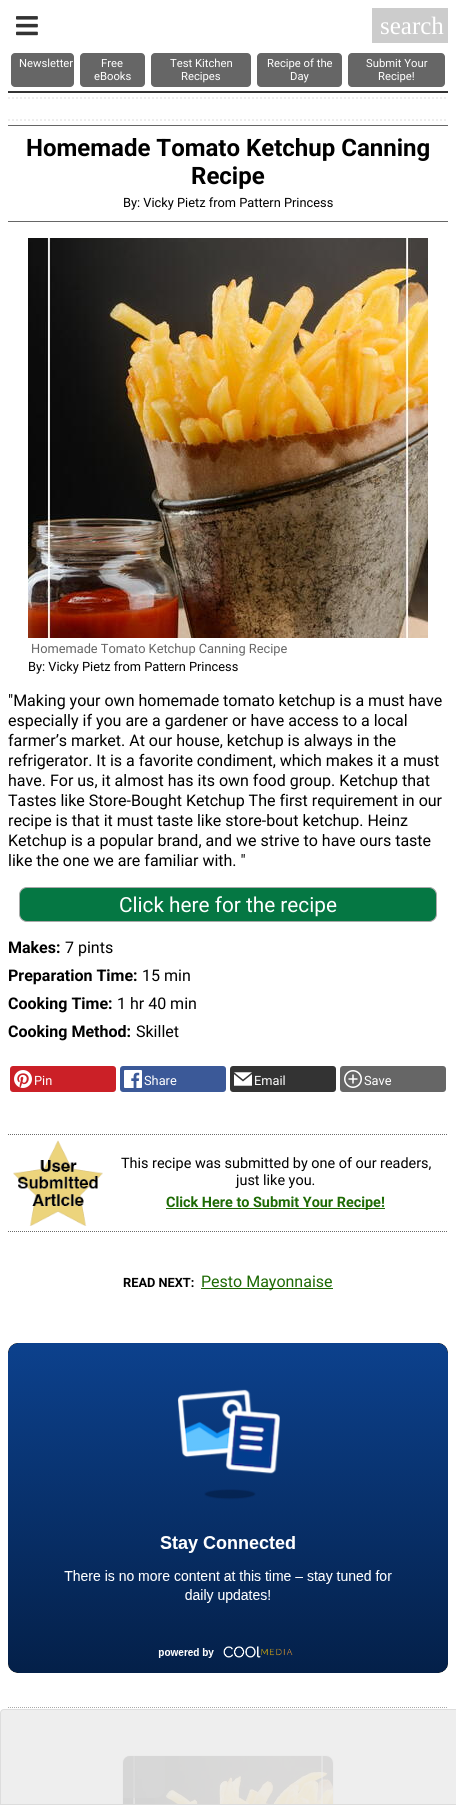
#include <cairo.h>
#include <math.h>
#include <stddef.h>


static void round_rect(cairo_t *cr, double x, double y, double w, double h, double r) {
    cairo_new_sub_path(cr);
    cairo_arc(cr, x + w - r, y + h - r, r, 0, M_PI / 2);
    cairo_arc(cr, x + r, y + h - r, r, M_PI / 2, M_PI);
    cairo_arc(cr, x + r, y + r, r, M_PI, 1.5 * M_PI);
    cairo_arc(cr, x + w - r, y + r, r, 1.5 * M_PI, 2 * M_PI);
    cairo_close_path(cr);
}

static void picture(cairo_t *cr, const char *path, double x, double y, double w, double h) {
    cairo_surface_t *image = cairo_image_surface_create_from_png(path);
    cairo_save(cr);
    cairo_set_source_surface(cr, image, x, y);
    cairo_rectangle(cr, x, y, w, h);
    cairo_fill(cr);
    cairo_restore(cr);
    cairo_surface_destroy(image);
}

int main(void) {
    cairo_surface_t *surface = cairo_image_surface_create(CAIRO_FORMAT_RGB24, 456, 1805);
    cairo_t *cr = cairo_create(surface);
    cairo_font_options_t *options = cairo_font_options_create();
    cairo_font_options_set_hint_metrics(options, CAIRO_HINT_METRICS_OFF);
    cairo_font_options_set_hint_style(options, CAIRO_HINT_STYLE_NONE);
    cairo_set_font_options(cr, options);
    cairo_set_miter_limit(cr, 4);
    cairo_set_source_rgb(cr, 1, 1, 1);
    cairo_paint(cr);
    cairo_set_source_rgb(cr, 0.2, 0.2, 0.2);
    cairo_rectangle(cr, 8, 91, 440, 2);
    cairo_fill(cr);
    picture(cr, "img1.png", 16, 16, 22, 20);
    cairo_set_source_rgb(cr, 0.8, 0.8, 0.8);
    cairo_rectangle(cr, 372, 8, 76, 35);
    cairo_fill(cr);
    cairo_select_font_face(cr, "Liberation Serif", CAIRO_FONT_SLANT_NORMAL, CAIRO_FONT_WEIGHT_NORMAL);
    cairo_set_font_size(cr, 25);
    cairo_set_source_rgb(cr, 1, 1, 1);
    cairo_move_to(cr, 380, 34);
    cairo_show_text(cr, "search");
    cairo_set_source_rgb(cr, 0.4, 0.4, 0.4);
    round_rect(cr, 11, 53, 63, 34, 4);
    cairo_fill(cr);
    cairo_select_font_face(cr, "Roboto", CAIRO_FONT_SLANT_NORMAL, CAIRO_FONT_WEIGHT_NORMAL);
    cairo_set_font_size(cr, 11.25);
    cairo_set_source_rgb(cr, 1, 1, 1);
    cairo_move_to(cr, 19, 67);
    cairo_show_text(cr, "Newsletter");
    cairo_set_source_rgb(cr, 0.4, 0.4, 0.4);
    round_rect(cr, 80, 53, 65, 34, 4);
    cairo_fill(cr);
    cairo_set_source_rgb(cr, 1, 1, 1);
    cairo_move_to(cr, 101, 67);
    cairo_show_text(cr, "Free");
    cairo_move_to(cr, 94, 80);
    cairo_show_text(cr, "eBooks");
    cairo_set_source_rgb(cr, 0.4, 0.4, 0.4);
    round_rect(cr, 151, 53, 100, 34, 4);
    cairo_fill(cr);
    cairo_set_source_rgb(cr, 1, 1, 1);
    cairo_move_to(cr, 170, 67);
    cairo_show_text(cr, "Test Kitchen");
    cairo_move_to(cr, 181, 80);
    cairo_show_text(cr, "Recipes");
    cairo_set_source_rgb(cr, 0.4, 0.4, 0.4);
    round_rect(cr, 257, 53, 85, 34, 4);
    cairo_fill(cr);
    cairo_set_source_rgb(cr, 1, 1, 1);
    cairo_move_to(cr, 267, 67);
    cairo_show_text(cr, "Recipe of the");
    cairo_move_to(cr, 290, 80);
    cairo_show_text(cr, "Day");
    cairo_set_source_rgb(cr, 0.4, 0.4, 0.4);
    round_rect(cr, 348, 53, 97, 34, 4);
    cairo_fill(cr);
    cairo_set_source_rgb(cr, 1, 1, 1);
    cairo_move_to(cr, 366, 67);
    cairo_show_text(cr, "Submit Your");
    cairo_move_to(cr, 378, 80);
    cairo_show_text(cr, "Recipe!");
    cairo_new_path(cr);
    cairo_move_to(cr, 8, 98);
    cairo_line_to(cr, 448, 98);
    cairo_set_source_rgb(cr, 0.933, 0.933, 0.933);
    cairo_set_dash(cr, (double[]){2, 2}, 2, 0);
    cairo_stroke(cr);
    cairo_new_path(cr);
    cairo_move_to(cr, 8, 120);
    cairo_line_to(cr, 448, 120);
    cairo_stroke(cr);
    cairo_set_source_rgb(cr, 0.4, 0.4, 0.4);
    cairo_rectangle(cr, 8, 125, 440, 1);
    cairo_fill(cr);
    cairo_rectangle(cr, 8, 221, 440, 1);
    cairo_fill(cr);
    cairo_select_font_face(cr, "Roboto", CAIRO_FONT_SLANT_NORMAL, CAIRO_FONT_WEIGHT_BOLD);
    cairo_set_font_size(cr, 24);
    cairo_set_source_rgb(cr, 0, 0, 0);
    cairo_move_to(cr, 26, 156);
    cairo_show_text(cr, "Homemade Tomato Ketchup Canning");
    cairo_move_to(cr, 191, 184);
    cairo_show_text(cr, "Recipe");
    cairo_select_font_face(cr, "Roboto", CAIRO_FONT_SLANT_NORMAL, CAIRO_FONT_WEIGHT_NORMAL);
    cairo_set_font_size(cr, 12.8);
    cairo_move_to(cr, 123, 207);
    cairo_show_text(cr, "By: Vicky Pietz from Pattern Princess");
    picture(cr, "img2.png", 28, 238, 400, 400);
    cairo_set_source_rgb(cr, 0.4, 0.4, 0.4);
    cairo_move_to(cr, 31, 653);
    cairo_show_text(cr, "Homemade Tomato Ketchup Canning Recipe");
    cairo_set_source_rgb(cr, 0, 0, 0);
    cairo_move_to(cr, 28, 671);
    cairo_show_text(cr, "By: Vicky Pietz from Pattern Princess");
    cairo_set_font_size(cr, 16);
    cairo_move_to(cr, 8, 706);
    cairo_show_text(cr, "\"Making your own homemade tomato ketchup is a must have");
    cairo_move_to(cr, 8, 726);
    cairo_show_text(cr, "especially if you are a gardener or have access to a local");
    cairo_move_to(cr, 8, 746);
    cairo_show_text(cr, "farmer’s market. At our house, ketchup is always in the");
    cairo_move_to(cr, 8, 766);
    cairo_show_text(cr, "refrigerator. It is a favorite condiment, which makes it a must");
    cairo_move_to(cr, 8, 786);
    cairo_show_text(cr, "have. For us, it almost has its own food group. Ketchup that");
    cairo_move_to(cr, 8, 806);
    cairo_show_text(cr, "Tastes like Store-Bought Ketchup The first requirement in our");
    cairo_move_to(cr, 8, 826);
    cairo_show_text(cr, "recipe is that it must taste like store-bout ketchup. Heinz");
    cairo_move_to(cr, 8, 846);
    cairo_show_text(cr, "Ketchup is a popular brand, and we strive to have ours taste");
    cairo_move_to(cr, 8, 866);
    cairo_show_text(cr, "like the one we are familiar with. \"");
    cairo_set_source_rgb(cr, 0.02, 0.467, 0.263);
    round_rect(cr, 19.5, 887.5, 417, 34, 7.5);
    cairo_fill_preserve(cr);
    cairo_set_source_rgb(cr, 0.667, 0.667, 0.667);
    cairo_set_line_width(cr, 1);
    cairo_set_dash(cr, NULL, 0, 0);
    cairo_stroke(cr);
    cairo_set_font_size(cr, 20.75);
    cairo_set_source_rgb(cr, 1, 1, 1);
    cairo_move_to(cr, 119, 912);
    cairo_show_text(cr, "Click here for the recipe");
    cairo_select_font_face(cr, "Roboto", CAIRO_FONT_SLANT_NORMAL, CAIRO_FONT_WEIGHT_BOLD);
    cairo_set_font_size(cr, 16);
    cairo_set_source_rgb(cr, 0, 0, 0);
    cairo_move_to(cr, 8, 953);
    cairo_show_text(cr, "Makes:");
    cairo_select_font_face(cr, "Roboto", CAIRO_FONT_SLANT_NORMAL, CAIRO_FONT_WEIGHT_NORMAL);
    cairo_move_to(cr, 65, 953);
    cairo_show_text(cr, "7 pints");
    cairo_select_font_face(cr, "Roboto", CAIRO_FONT_SLANT_NORMAL, CAIRO_FONT_WEIGHT_BOLD);
    cairo_move_to(cr, 8, 981);
    cairo_show_text(cr, "Preparation Time:");
    cairo_select_font_face(cr, "Roboto", CAIRO_FONT_SLANT_NORMAL, CAIRO_FONT_WEIGHT_NORMAL);
    cairo_move_to(cr, 142, 981);
    cairo_show_text(cr, "15 min");
    cairo_select_font_face(cr, "Roboto", CAIRO_FONT_SLANT_NORMAL, CAIRO_FONT_WEIGHT_BOLD);
    cairo_move_to(cr, 8, 1009);
    cairo_show_text(cr, "Cooking Time:");
    cairo_select_font_face(cr, "Roboto", CAIRO_FONT_SLANT_NORMAL, CAIRO_FONT_WEIGHT_NORMAL);
    cairo_move_to(cr, 117, 1009);
    cairo_show_text(cr, "1 hr 40 min");
    cairo_select_font_face(cr, "Roboto", CAIRO_FONT_SLANT_NORMAL, CAIRO_FONT_WEIGHT_BOLD);
    cairo_move_to(cr, 8, 1037);
    cairo_show_text(cr, "Cooking Method:");
    cairo_select_font_face(cr, "Roboto", CAIRO_FONT_SLANT_NORMAL, CAIRO_FONT_WEIGHT_NORMAL);
    cairo_move_to(cr, 136, 1037);
    cairo_show_text(cr, "Skillet");
    cairo_set_source_rgb(cr, 0.796, 0.125, 0.153);
    round_rect(cr, 10, 1066, 106, 26, 3);
    cairo_fill(cr);
    picture(cr, "img3.png", 14, 1070, 18, 18);
    cairo_set_font_size(cr, 12.8);
    cairo_set_source_rgb(cr, 1, 1, 1);
    cairo_move_to(cr, 34, 1085);
    cairo_show_text(cr, "Pin");
    cairo_set_source_rgb(cr, 0.231, 0.349, 0.596);
    round_rect(cr, 120, 1066, 106, 26, 3);
    cairo_fill(cr);
    picture(cr, "img4.png", 124, 1070, 18, 18);
    cairo_set_source_rgb(cr, 1, 1, 1);
    cairo_move_to(cr, 144, 1085);
    cairo_show_text(cr, "Share");
    cairo_set_source_rgb(cr, 0.2, 0.2, 0.2);
    round_rect(cr, 230, 1066, 106, 26, 3);
    cairo_fill(cr);
    picture(cr, "img5.png", 234, 1072, 18, 14);
    cairo_set_source_rgb(cr, 1, 1, 1);
    cairo_move_to(cr, 254, 1085);
    cairo_show_text(cr, "Email");
    cairo_set_source_rgb(cr, 0.4, 0.4, 0.4);
    round_rect(cr, 340, 1066, 106, 26, 3);
    cairo_fill(cr);
    picture(cr, "img6.png", 344, 1070, 18, 18);
    cairo_set_source_rgb(cr, 1, 1, 1);
    cairo_move_to(cr, 364, 1085);
    cairo_show_text(cr, "Save");
    cairo_new_path(cr);
    cairo_move_to(cr, 8, 1134.5);
    cairo_line_to(cr, 448, 1134.5);
    cairo_set_source_rgb(cr, 0.416, 0.416, 0.416);
    cairo_set_dash(cr, (double[]){1, 1}, 2, 0);
    cairo_stroke(cr);
    cairo_new_path(cr);
    cairo_move_to(cr, 8, 1231.5);
    cairo_line_to(cr, 448, 1231.5);
    cairo_stroke(cr);
    picture(cr, "img7.png", 13, 1140, 90, 86);
    cairo_set_font_size(cr, 14.4);
    cairo_set_source_rgb(cr, 0, 0, 0);
    cairo_move_to(cr, 121, 1168);
    cairo_show_text(cr, "This recipe was submitted by one of our readers,");
    cairo_move_to(cr, 236, 1185);
    cairo_show_text(cr, "just like you.");
    cairo_set_source_rgb(cr, 0.114, 0.416, 0.016);
    cairo_rectangle(cr, 166, 1208, 219, 1);
    cairo_fill(cr);
    cairo_select_font_face(cr, "Roboto", CAIRO_FONT_SLANT_NORMAL, CAIRO_FONT_WEIGHT_BOLD);
    cairo_move_to(cr, 166, 1207);
    cairo_show_text(cr, "Click Here to Submit Your Recipe!");
    cairo_set_font_size(cr, 12.8);
    cairo_set_source_rgb(cr, 0, 0, 0);
    cairo_move_to(cr, 123, 1287);
    cairo_show_text(cr, "READ NEXT:");
    cairo_set_source_rgb(cr, 0.114, 0.416, 0.016);
    cairo_rectangle(cr, 201, 1288, 132, 1);
    cairo_fill(cr);
    cairo_select_font_face(cr, "Roboto", CAIRO_FONT_SLANT_NORMAL, CAIRO_FONT_WEIGHT_NORMAL);
    cairo_set_font_size(cr, 16);
    cairo_move_to(cr, 201, 1287);
    cairo_show_text(cr, "Pesto Mayonnaise");
    picture(cr, "img8.png", 8, 1343, 440, 330);
    cairo_new_path(cr);
    cairo_move_to(cr, 8, 1707.5);
    cairo_line_to(cr, 448, 1707.5);
    cairo_set_source_rgb(cr, 0.667, 0.667, 0.667);
    cairo_stroke(cr);
    round_rect(cr, 122.5, 1755.5, 211, 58, 7.5);
    cairo_set_source_rgb(cr, 0.933, 0.933, 0.933);
    cairo_set_dash(cr, NULL, 0, 0);
    cairo_stroke(cr);
    picture(cr, "img9.png", 123, 1756, 210, 48);
    cairo_set_source_rgba(cr, 0.196, 0.196, 0.196, 0.7);
    cairo_new_path(cr);
    cairo_move_to(cr, 130, 1756);
    cairo_line_to(cr, 165, 1756);
    cairo_line_to(cr, 165, 1788);
    cairo_curve_to(cr, 165, 1793.5, 160.5, 1798, 155, 1798);
    cairo_line_to(cr, 123, 1798);
    cairo_line_to(cr, 123, 1763);
    cairo_curve_to(cr, 123, 1759, 126, 1756, 130, 1756);
    cairo_close_path(cr);
    cairo_fill(cr);
    cairo_set_source_rgba(cr, 0.922, 0.922, 0.922, 0.89);
    cairo_new_path(cr);
    cairo_move_to(cr, 4, 1709.5);
    cairo_line_to(cr, 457.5, 1709.5);
    cairo_line_to(cr, 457.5, 1804.5);
    cairo_line_to(cr, 0.5, 1804.5);
    cairo_line_to(cr, 0.5, 1713);
    cairo_curve_to(cr, 0.5, 1711, 2, 1709.5, 4, 1709.5);
    cairo_close_path(cr);
    cairo_fill_preserve(cr);
    cairo_set_source_rgb(cr, 0.867, 0.867, 0.867);
    cairo_stroke(cr);
    cairo_surface_write_to_png(surface, "page.png");
    cairo_font_options_destroy(options);
    cairo_destroy(cr);
    cairo_surface_destroy(surface);
    return 0;
}
